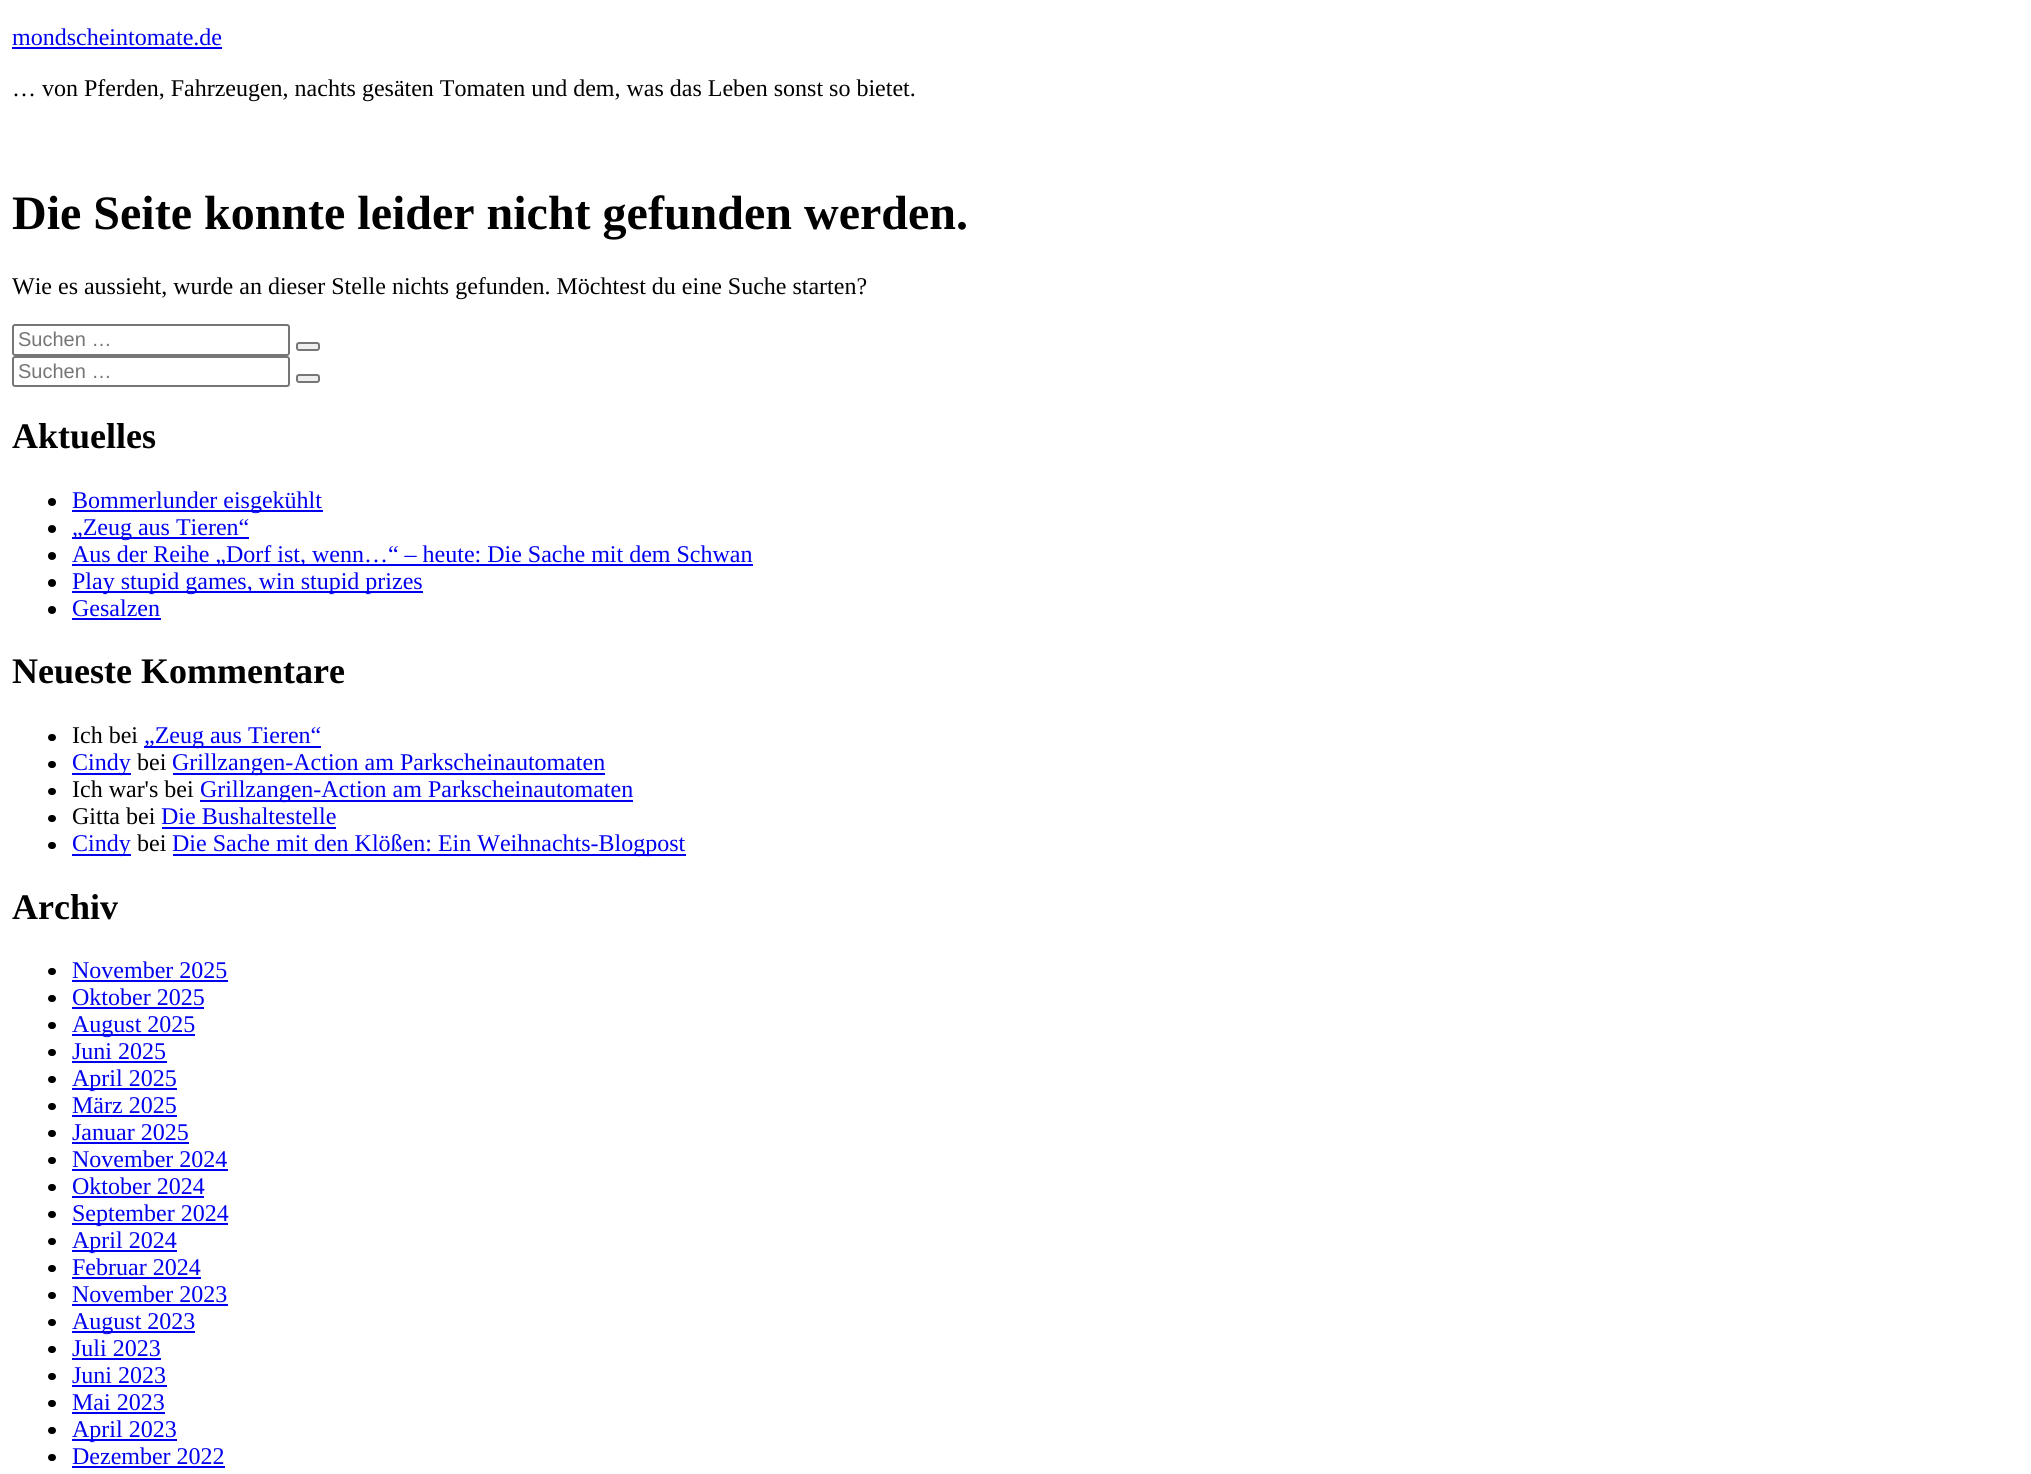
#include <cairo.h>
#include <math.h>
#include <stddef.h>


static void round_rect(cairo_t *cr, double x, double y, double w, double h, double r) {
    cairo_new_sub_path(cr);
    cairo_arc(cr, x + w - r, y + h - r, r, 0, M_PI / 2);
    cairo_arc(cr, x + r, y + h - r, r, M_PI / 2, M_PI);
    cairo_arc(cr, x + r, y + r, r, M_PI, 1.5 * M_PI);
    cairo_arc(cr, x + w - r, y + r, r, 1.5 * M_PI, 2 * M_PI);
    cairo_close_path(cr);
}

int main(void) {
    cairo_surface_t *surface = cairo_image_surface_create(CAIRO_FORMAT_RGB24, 2031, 1474);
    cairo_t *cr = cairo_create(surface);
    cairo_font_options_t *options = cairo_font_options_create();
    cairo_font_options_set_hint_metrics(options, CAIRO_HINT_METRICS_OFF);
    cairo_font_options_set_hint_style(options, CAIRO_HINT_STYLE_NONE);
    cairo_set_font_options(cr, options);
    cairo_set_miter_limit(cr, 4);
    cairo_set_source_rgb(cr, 1, 1, 1);
    cairo_paint(cr);
    cairo_select_font_face(cr, "Liberation Serif", CAIRO_FONT_SLANT_NORMAL, CAIRO_FONT_WEIGHT_NORMAL);
    cairo_set_font_size(cr, 24);
    cairo_set_source_rgb(cr, 0, 0, 0.933);
    cairo_move_to(cr, 12, 45);
    cairo_show_text(cr, "mondscheintomate.de");
    cairo_rectangle(cr, 12, 47, 210, 2);
    cairo_fill(cr);
    cairo_set_source_rgb(cr, 0, 0, 0);
    cairo_move_to(cr, 12, 96);
    cairo_show_text(cr, "… von Pferden, Fahrzeugen, nachts gesäten Tomaten und dem, was das Leben sonst so bietet.");
    cairo_select_font_face(cr, "Liberation Serif", CAIRO_FONT_SLANT_NORMAL, CAIRO_FONT_WEIGHT_BOLD);
    cairo_set_font_size(cr, 48);
    cairo_move_to(cr, 12, 229);
    cairo_show_text(cr, "Die Seite konnte leider nicht gefunden werden.");
    cairo_select_font_face(cr, "Liberation Serif", CAIRO_FONT_SLANT_NORMAL, CAIRO_FONT_WEIGHT_NORMAL);
    cairo_set_font_size(cr, 24);
    cairo_move_to(cr, 12, 294);
    cairo_show_text(cr, "Wie es aussieht, wurde an dieser Stelle nichts gefunden. Möchtest du eine Suche starten?");
    round_rect(cr, 13, 325, 276, 30, 2);
    cairo_set_source_rgb(cr, 0.463, 0.463, 0.463);
    cairo_stroke(cr);
    cairo_select_font_face(cr, "Liberation Sans", CAIRO_FONT_SLANT_NORMAL, CAIRO_FONT_WEIGHT_NORMAL);
    cairo_set_font_size(cr, 20);
    cairo_set_source_rgb(cr, 0.459, 0.459, 0.459);
    cairo_move_to(cr, 18, 346);
    cairo_show_text(cr, "Suchen …");
    cairo_set_source_rgb(cr, 0.937, 0.937, 0.937);
    round_rect(cr, 297, 343, 22, 7, 2);
    cairo_fill_preserve(cr);
    cairo_set_source_rgb(cr, 0.463, 0.463, 0.463);
    cairo_stroke(cr);
    round_rect(cr, 13, 357, 276, 29, 2);
    cairo_stroke(cr);
    cairo_set_source_rgb(cr, 0.459, 0.459, 0.459);
    cairo_move_to(cr, 18, 378);
    cairo_show_text(cr, "Suchen …");
    cairo_set_source_rgb(cr, 0.937, 0.937, 0.937);
    round_rect(cr, 297, 375, 22, 7, 2);
    cairo_fill_preserve(cr);
    cairo_set_source_rgb(cr, 0.463, 0.463, 0.463);
    cairo_stroke(cr);
    cairo_select_font_face(cr, "Liberation Serif", CAIRO_FONT_SLANT_NORMAL, CAIRO_FONT_WEIGHT_BOLD);
    cairo_set_font_size(cr, 36);
    cairo_set_source_rgb(cr, 0, 0, 0);
    cairo_move_to(cr, 12, 448);
    cairo_show_text(cr, "Aktuelles");
    cairo_new_path(cr);
    cairo_arc(cr, 52, 502, 4, 0, 2 * M_PI);
    cairo_fill(cr);
    cairo_set_source_rgb(cr, 0, 0, 0.933);
    cairo_rectangle(cr, 72, 510, 251, 2);
    cairo_fill(cr);
    cairo_select_font_face(cr, "Liberation Serif", CAIRO_FONT_SLANT_NORMAL, CAIRO_FONT_WEIGHT_NORMAL);
    cairo_set_font_size(cr, 24);
    cairo_move_to(cr, 72, 508);
    cairo_show_text(cr, "Bommerlunder eisgekühlt");
    cairo_set_source_rgb(cr, 0, 0, 0);
    cairo_new_path(cr);
    cairo_arc(cr, 52, 529, 4, 0, 2 * M_PI);
    cairo_fill(cr);
    cairo_set_source_rgb(cr, 0, 0, 0.933);
    cairo_rectangle(cr, 72, 537, 177, 2);
    cairo_fill(cr);
    cairo_move_to(cr, 72, 535);
    cairo_show_text(cr, "„Zeug aus Tieren“");
    cairo_set_source_rgb(cr, 0, 0, 0);
    cairo_new_path(cr);
    cairo_arc(cr, 52, 556, 4, 0, 2 * M_PI);
    cairo_fill(cr);
    cairo_set_source_rgb(cr, 0, 0, 0.933);
    cairo_rectangle(cr, 72, 564, 681, 2);
    cairo_fill(cr);
    cairo_move_to(cr, 72, 562);
    cairo_show_text(cr, "Aus der Reihe „Dorf ist, wenn…“ – heute: Die Sache mit dem Schwan");
    cairo_set_source_rgb(cr, 0, 0, 0);
    cairo_new_path(cr);
    cairo_arc(cr, 52, 583, 4, 0, 2 * M_PI);
    cairo_fill(cr);
    cairo_set_source_rgb(cr, 0, 0, 0.933);
    cairo_rectangle(cr, 72, 591, 351, 2);
    cairo_fill(cr);
    cairo_move_to(cr, 72, 589);
    cairo_show_text(cr, "Play stupid games, win stupid prizes");
    cairo_set_source_rgb(cr, 0, 0, 0);
    cairo_new_path(cr);
    cairo_arc(cr, 52, 610, 4, 0, 2 * M_PI);
    cairo_fill(cr);
    cairo_set_source_rgb(cr, 0, 0, 0.933);
    cairo_move_to(cr, 72, 616);
    cairo_show_text(cr, "Gesalzen");
    cairo_rectangle(cr, 72, 618, 89, 2);
    cairo_fill(cr);
    cairo_select_font_face(cr, "Liberation Serif", CAIRO_FONT_SLANT_NORMAL, CAIRO_FONT_WEIGHT_BOLD);
    cairo_set_font_size(cr, 36);
    cairo_set_source_rgb(cr, 0, 0, 0);
    cairo_move_to(cr, 12, 683);
    cairo_show_text(cr, "Neueste Kommentare");
    round_rect(cr, 48, 734, 8, 7, 3.5);
    cairo_fill(cr);
    cairo_select_font_face(cr, "Liberation Serif", CAIRO_FONT_SLANT_NORMAL, CAIRO_FONT_WEIGHT_NORMAL);
    cairo_set_font_size(cr, 24);
    cairo_move_to(cr, 72, 743);
    cairo_show_text(cr, "Ich bei");
    cairo_set_source_rgb(cr, 0, 0, 0.933);
    cairo_rectangle(cr, 144, 746, 177, 2);
    cairo_fill(cr);
    cairo_move_to(cr, 144, 743);
    cairo_show_text(cr, "„Zeug aus Tieren“");
    cairo_set_source_rgb(cr, 0, 0, 0);
    round_rect(cr, 48, 761, 8, 7, 3.5);
    cairo_fill(cr);
    cairo_set_source_rgb(cr, 0, 0, 0.933);
    cairo_rectangle(cr, 72, 773, 59, 2);
    cairo_fill(cr);
    cairo_move_to(cr, 72, 770);
    cairo_show_text(cr, "Cindy");
    cairo_set_source_rgb(cr, 0, 0, 0);
    cairo_move_to(cr, 137, 770);
    cairo_show_text(cr, "bei");
    cairo_set_source_rgb(cr, 0, 0, 0.933);
    cairo_rectangle(cr, 173, 773, 432, 2);
    cairo_fill(cr);
    cairo_move_to(cr, 172, 770);
    cairo_show_text(cr, "Grillzangen-Action am Parkscheinautomaten");
    cairo_set_source_rgb(cr, 0, 0, 0);
    round_rect(cr, 48, 788, 8, 7, 3.5);
    cairo_fill(cr);
    cairo_move_to(cr, 72, 797);
    cairo_show_text(cr, "Ich war's bei");
    cairo_set_source_rgb(cr, 0, 0, 0.933);
    cairo_rectangle(cr, 200, 800, 433, 2);
    cairo_fill(cr);
    cairo_move_to(cr, 200, 797);
    cairo_show_text(cr, "Grillzangen-Action am Parkscheinautomaten");
    cairo_set_source_rgb(cr, 0, 0, 0);
    round_rect(cr, 48, 815, 8, 7, 3.5);
    cairo_fill(cr);
    cairo_move_to(cr, 72, 824);
    cairo_show_text(cr, "Gitta bei");
    cairo_set_source_rgb(cr, 0, 0, 0.933);
    cairo_move_to(cr, 161, 824);
    cairo_show_text(cr, "Die Bushaltestelle");
    cairo_rectangle(cr, 162, 827, 174, 2);
    cairo_fill(cr);
    cairo_set_source_rgb(cr, 0, 0, 0);
    round_rect(cr, 48, 842, 8, 7, 3.5);
    cairo_fill(cr);
    cairo_set_source_rgb(cr, 0, 0, 0.933);
    cairo_rectangle(cr, 72, 854, 59, 2);
    cairo_fill(cr);
    cairo_move_to(cr, 72, 851);
    cairo_show_text(cr, "Cindy");
    cairo_set_source_rgb(cr, 0, 0, 0);
    cairo_move_to(cr, 137, 851);
    cairo_show_text(cr, "bei");
    cairo_set_source_rgb(cr, 0, 0, 0.933);
    cairo_rectangle(cr, 173, 854, 513, 2);
    cairo_fill(cr);
    cairo_move_to(cr, 172, 851);
    cairo_show_text(cr, "Die Sache mit den Klößen: Ein Weihnachts-Blogpost");
    cairo_select_font_face(cr, "Liberation Serif", CAIRO_FONT_SLANT_NORMAL, CAIRO_FONT_WEIGHT_BOLD);
    cairo_set_font_size(cr, 36);
    cairo_set_source_rgb(cr, 0, 0, 0);
    cairo_move_to(cr, 12, 919);
    cairo_show_text(cr, "Archiv");
    round_rect(cr, 48, 968, 8, 7, 3.5);
    cairo_fill(cr);
    cairo_select_font_face(cr, "Liberation Serif", CAIRO_FONT_SLANT_NORMAL, CAIRO_FONT_WEIGHT_NORMAL);
    cairo_set_font_size(cr, 24);
    cairo_set_source_rgb(cr, 0, 0, 0.933);
    cairo_move_to(cr, 72, 978);
    cairo_show_text(cr, "November 2025");
    cairo_rectangle(cr, 72, 980, 156, 2);
    cairo_fill(cr);
    cairo_set_source_rgb(cr, 0, 0, 0);
    round_rect(cr, 48, 995, 8, 7, 3.5);
    cairo_fill(cr);
    cairo_set_source_rgb(cr, 0, 0, 0.933);
    cairo_move_to(cr, 72, 1005);
    cairo_show_text(cr, "Oktober 2025");
    cairo_rectangle(cr, 72, 1007, 132, 2);
    cairo_fill(cr);
    cairo_set_source_rgb(cr, 0, 0, 0);
    round_rect(cr, 48, 1022, 8, 7, 3.5);
    cairo_fill(cr);
    cairo_set_source_rgb(cr, 0, 0, 0.933);
    cairo_rectangle(cr, 72, 1034, 123, 2);
    cairo_fill(cr);
    cairo_move_to(cr, 72, 1032);
    cairo_show_text(cr, "August 2025");
    cairo_set_source_rgb(cr, 0, 0, 0);
    round_rect(cr, 48, 1049, 8, 7, 3.5);
    cairo_fill(cr);
    cairo_set_source_rgb(cr, 0, 0, 0.933);
    cairo_move_to(cr, 72, 1059);
    cairo_show_text(cr, "Juni 2025");
    cairo_rectangle(cr, 72, 1061, 95, 2);
    cairo_fill(cr);
    cairo_set_source_rgb(cr, 0, 0, 0);
    round_rect(cr, 48, 1076, 8, 7, 3.5);
    cairo_fill(cr);
    cairo_set_source_rgb(cr, 0, 0, 0.933);
    cairo_rectangle(cr, 72, 1088, 105, 2);
    cairo_fill(cr);
    cairo_move_to(cr, 72, 1086);
    cairo_show_text(cr, "April 2025");
    cairo_set_source_rgb(cr, 0, 0, 0);
    round_rect(cr, 48, 1103, 8, 7, 3.5);
    cairo_fill(cr);
    cairo_set_source_rgb(cr, 0, 0, 0.933);
    cairo_move_to(cr, 72, 1113);
    cairo_show_text(cr, "März 2025");
    cairo_rectangle(cr, 72, 1115, 105, 2);
    cairo_fill(cr);
    cairo_set_source_rgb(cr, 0, 0, 0);
    round_rect(cr, 48, 1130, 8, 7, 3.5);
    cairo_fill(cr);
    cairo_set_source_rgb(cr, 0, 0, 0.933);
    cairo_move_to(cr, 72, 1140);
    cairo_show_text(cr, "Januar 2025");
    cairo_rectangle(cr, 72, 1142, 117, 2);
    cairo_fill(cr);
    cairo_set_source_rgb(cr, 0, 0, 0);
    round_rect(cr, 48, 1157, 8, 7, 3.5);
    cairo_fill(cr);
    cairo_set_source_rgb(cr, 0, 0, 0.933);
    cairo_move_to(cr, 72, 1167);
    cairo_show_text(cr, "November 2024");
    cairo_rectangle(cr, 72, 1169, 156, 2);
    cairo_fill(cr);
    cairo_set_source_rgb(cr, 0, 0, 0);
    round_rect(cr, 48, 1184, 8, 7, 3.5);
    cairo_fill(cr);
    cairo_set_source_rgb(cr, 0, 0, 0.933);
    cairo_move_to(cr, 72, 1194);
    cairo_show_text(cr, "Oktober 2024");
    cairo_rectangle(cr, 72, 1196, 132, 2);
    cairo_fill(cr);
    cairo_set_source_rgb(cr, 0, 0, 0);
    round_rect(cr, 48, 1211, 8, 7, 3.5);
    cairo_fill(cr);
    cairo_set_source_rgb(cr, 0, 0, 0.933);
    cairo_rectangle(cr, 72, 1223, 156, 2);
    cairo_fill(cr);
    cairo_move_to(cr, 72, 1221);
    cairo_show_text(cr, "September 2024");
    cairo_set_source_rgb(cr, 0, 0, 0);
    round_rect(cr, 48, 1238, 8, 7, 3.5);
    cairo_fill(cr);
    cairo_set_source_rgb(cr, 0, 0, 0.933);
    cairo_rectangle(cr, 72, 1250, 105, 2);
    cairo_fill(cr);
    cairo_move_to(cr, 72, 1248);
    cairo_show_text(cr, "April 2024");
    cairo_set_source_rgb(cr, 0, 0, 0);
    round_rect(cr, 48, 1265, 8, 7, 3.5);
    cairo_fill(cr);
    cairo_set_source_rgb(cr, 0, 0, 0.933);
    cairo_move_to(cr, 72, 1275);
    cairo_show_text(cr, "Februar 2024");
    cairo_rectangle(cr, 72, 1277, 129, 2);
    cairo_fill(cr);
    cairo_set_source_rgb(cr, 0, 0, 0);
    round_rect(cr, 48, 1292, 8, 7, 3.5);
    cairo_fill(cr);
    cairo_set_source_rgb(cr, 0, 0, 0.933);
    cairo_move_to(cr, 72, 1302);
    cairo_show_text(cr, "November 2023");
    cairo_rectangle(cr, 72, 1304, 156, 2);
    cairo_fill(cr);
    cairo_set_source_rgb(cr, 0, 0, 0);
    round_rect(cr, 48, 1319, 8, 7, 3.5);
    cairo_fill(cr);
    cairo_set_source_rgb(cr, 0, 0, 0.933);
    cairo_rectangle(cr, 72, 1331, 123, 2);
    cairo_fill(cr);
    cairo_move_to(cr, 72, 1329);
    cairo_show_text(cr, "August 2023");
    cairo_set_source_rgb(cr, 0, 0, 0);
    round_rect(cr, 48, 1346, 8, 7, 3.5);
    cairo_fill(cr);
    cairo_set_source_rgb(cr, 0, 0, 0.933);
    cairo_move_to(cr, 72, 1356);
    cairo_show_text(cr, "Juli 2023");
    cairo_rectangle(cr, 72, 1358, 89, 2);
    cairo_fill(cr);
    cairo_set_source_rgb(cr, 0, 0, 0);
    round_rect(cr, 48, 1373, 8, 7, 3.5);
    cairo_fill(cr);
    cairo_set_source_rgb(cr, 0, 0, 0.933);
    cairo_move_to(cr, 72, 1383);
    cairo_show_text(cr, "Juni 2023");
    cairo_rectangle(cr, 72, 1385, 95, 2);
    cairo_fill(cr);
    cairo_set_source_rgb(cr, 0, 0, 0);
    round_rect(cr, 48, 1400, 8, 7, 3.5);
    cairo_fill(cr);
    cairo_set_source_rgb(cr, 0, 0, 0.933);
    cairo_move_to(cr, 72, 1410);
    cairo_show_text(cr, "Mai 2023");
    cairo_rectangle(cr, 72, 1412, 93, 2);
    cairo_fill(cr);
    cairo_set_source_rgb(cr, 0, 0, 0);
    round_rect(cr, 48, 1427, 8, 7, 3.5);
    cairo_fill(cr);
    cairo_set_source_rgb(cr, 0, 0, 0.933);
    cairo_rectangle(cr, 72, 1439, 105, 2);
    cairo_fill(cr);
    cairo_move_to(cr, 72, 1437);
    cairo_show_text(cr, "April 2023");
    cairo_set_source_rgb(cr, 0, 0, 0);
    round_rect(cr, 48, 1454, 8, 7, 3.5);
    cairo_fill(cr);
    cairo_set_source_rgb(cr, 0, 0, 0.933);
    cairo_move_to(cr, 72, 1464);
    cairo_show_text(cr, "Dezember 2022");
    cairo_rectangle(cr, 72, 1466, 153, 2);
    cairo_fill(cr);
    cairo_surface_write_to_png(surface, "page.png");
    cairo_font_options_destroy(options);
    cairo_destroy(cr);
    cairo_surface_destroy(surface);
    return 0;
}
